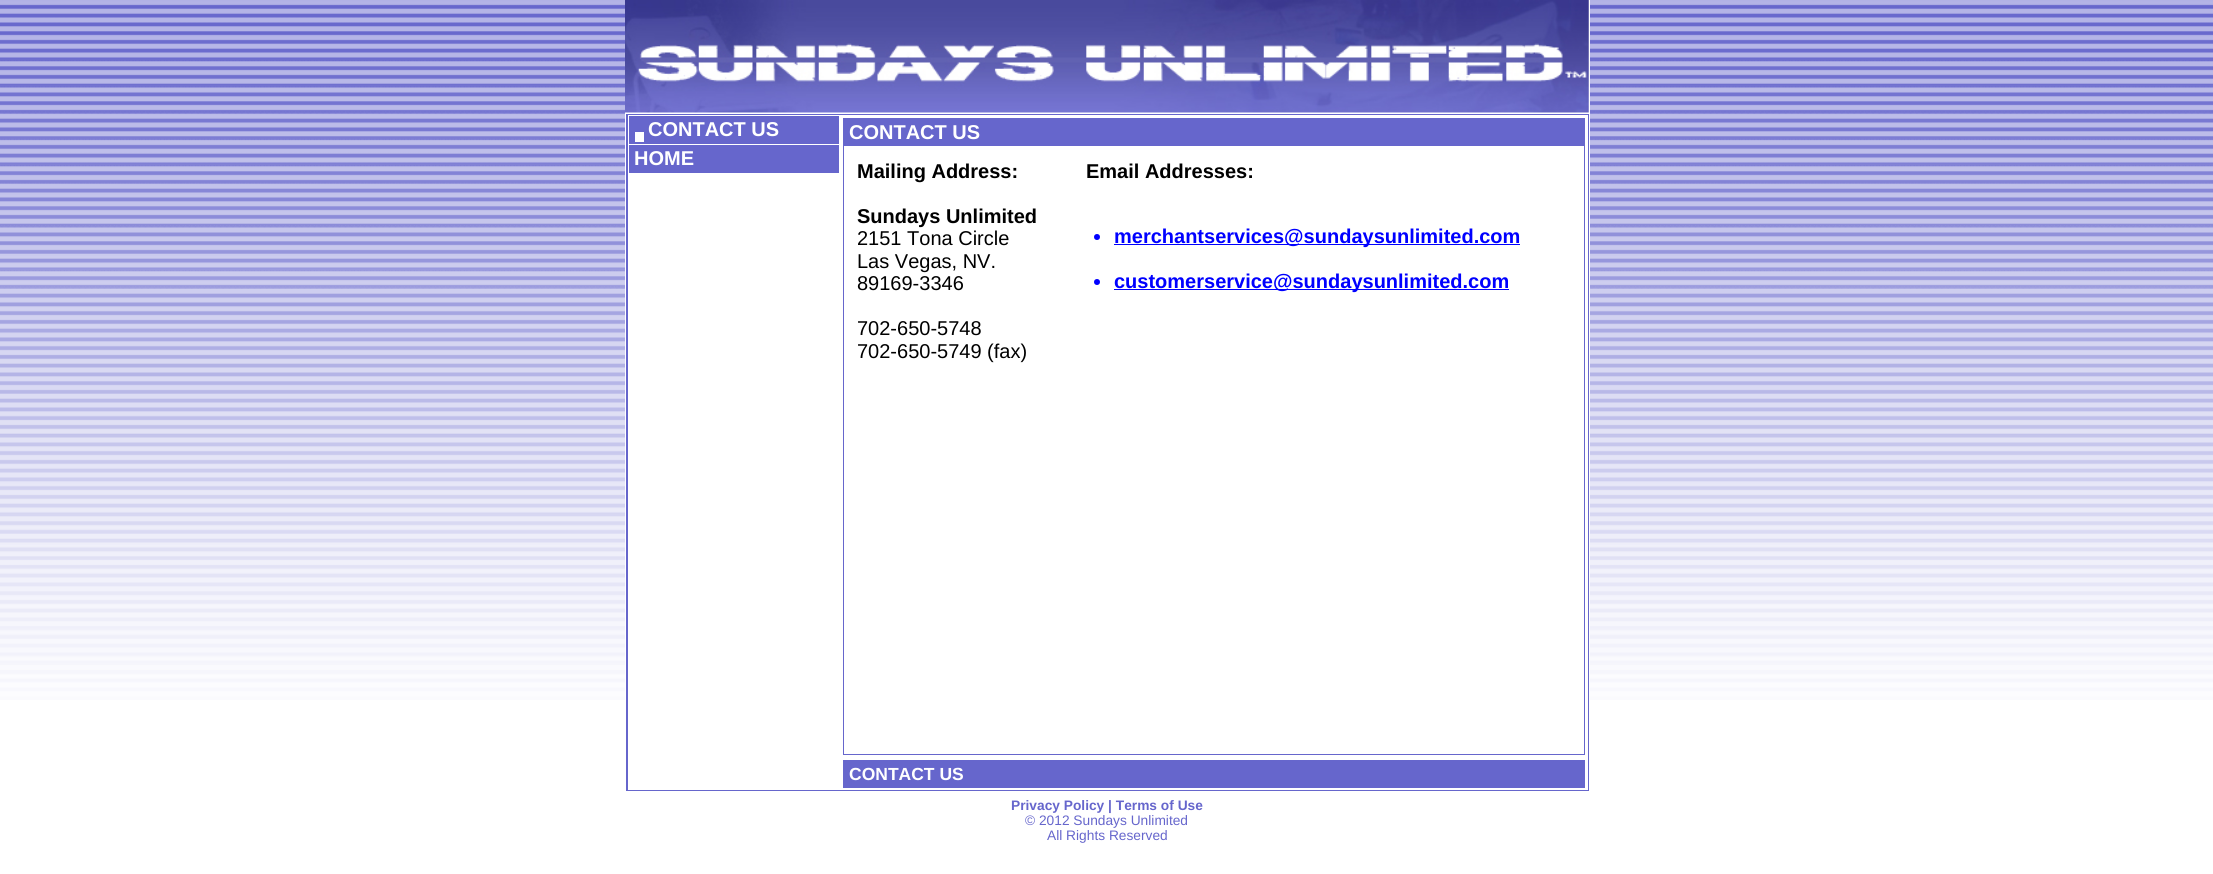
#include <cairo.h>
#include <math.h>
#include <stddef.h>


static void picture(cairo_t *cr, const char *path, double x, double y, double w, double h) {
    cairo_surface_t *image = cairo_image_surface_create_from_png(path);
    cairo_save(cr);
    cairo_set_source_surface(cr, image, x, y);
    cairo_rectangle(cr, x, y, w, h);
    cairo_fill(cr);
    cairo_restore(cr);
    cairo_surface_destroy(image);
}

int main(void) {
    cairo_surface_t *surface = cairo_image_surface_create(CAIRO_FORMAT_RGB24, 2213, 874);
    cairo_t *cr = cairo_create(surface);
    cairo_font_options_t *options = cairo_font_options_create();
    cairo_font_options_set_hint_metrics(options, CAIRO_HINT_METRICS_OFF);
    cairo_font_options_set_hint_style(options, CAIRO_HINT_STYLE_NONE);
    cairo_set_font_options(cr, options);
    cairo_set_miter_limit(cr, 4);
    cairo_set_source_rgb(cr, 1, 1, 1);
    cairo_paint(cr);
    picture(cr, "img1.png", 0, 0, 2213, 700);
    cairo_set_source_rgb(cr, 1, 1, 1);
    cairo_rectangle(cr, 625, 0, 965, 700);
    cairo_fill(cr);
    picture(cr, "img2.png", 625, 0, 964, 113);
    cairo_set_source_rgb(cr, 0.4, 0.4, 0.8);
    cairo_rectangle(cr, 626, 114, 963, 677);
    cairo_fill(cr);
    cairo_set_source_rgb(cr, 1, 1, 1);
    cairo_rectangle(cr, 628, 115, 960, 675);
    cairo_fill(cr);
    cairo_set_source_rgb(cr, 0.4, 0.4, 0.8);
    cairo_rectangle(cr, 629, 116, 210, 28);
    cairo_fill(cr);
    cairo_select_font_face(cr, "Liberation Sans", CAIRO_FONT_SLANT_NORMAL, CAIRO_FONT_WEIGHT_BOLD);
    cairo_set_font_size(cr, 20);
    cairo_set_source_rgb(cr, 1, 1, 1);
    cairo_move_to(cr, 648, 136);
    cairo_show_text(cr, "CONTACT US");
    cairo_rectangle(cr, 635, 132, 9, 10);
    cairo_fill(cr);
    cairo_set_source_rgb(cr, 0.4, 0.4, 0.8);
    cairo_rectangle(cr, 629, 145, 210, 28);
    cairo_fill(cr);
    cairo_set_source_rgb(cr, 1, 1, 1);
    cairo_move_to(cr, 634, 165);
    cairo_show_text(cr, "HOME");
    cairo_set_source_rgb(cr, 0.4, 0.4, 0.8);
    cairo_rectangle(cr, 843, 118, 742, 637);
    cairo_fill(cr);
    cairo_set_source_rgb(cr, 1, 1, 1);
    cairo_move_to(cr, 849, 139);
    cairo_show_text(cr, "CONTACT US");
    cairo_rectangle(cr, 844, 146, 740, 608);
    cairo_fill(cr);
    cairo_set_source_rgb(cr, 0, 0, 0);
    cairo_move_to(cr, 857, 178);
    cairo_show_text(cr, "Mailing Address:");
    cairo_move_to(cr, 857, 223);
    cairo_show_text(cr, "Sundays Unlimited");
    cairo_select_font_face(cr, "Liberation Sans", CAIRO_FONT_SLANT_NORMAL, CAIRO_FONT_WEIGHT_NORMAL);
    cairo_move_to(cr, 857, 245);
    cairo_show_text(cr, "2151 Tona Circle");
    cairo_move_to(cr, 857, 268);
    cairo_show_text(cr, "Las Vegas, NV.");
    cairo_move_to(cr, 857, 290);
    cairo_show_text(cr, "89169-3346");
    cairo_move_to(cr, 857, 335);
    cairo_show_text(cr, "702-650-5748");
    cairo_move_to(cr, 857, 358);
    cairo_show_text(cr, "702-650-5749 (fax)");
    cairo_select_font_face(cr, "Liberation Sans", CAIRO_FONT_SLANT_NORMAL, CAIRO_FONT_WEIGHT_BOLD);
    cairo_move_to(cr, 1086, 178);
    cairo_show_text(cr, "Email Addresses:");
    cairo_set_source_rgb(cr, 0, 0, 1);
    cairo_new_path(cr);
    cairo_arc(cr, 1097, 237, 3, 0, 2 * M_PI);
    cairo_fill(cr);
    cairo_rectangle(cr, 1114, 244, 406, 1);
    cairo_fill(cr);
    cairo_move_to(cr, 1114, 243);
    cairo_show_text(cr, "merchantservices@sundaysunlimited.com");
    cairo_new_path(cr);
    cairo_arc(cr, 1097, 282, 3, 0, 2 * M_PI);
    cairo_fill(cr);
    cairo_rectangle(cr, 1114, 289, 395, 1);
    cairo_fill(cr);
    cairo_move_to(cr, 1114, 288);
    cairo_show_text(cr, "customerservice@sundaysunlimited.com");
    cairo_set_source_rgb(cr, 0.4, 0.4, 0.8);
    cairo_rectangle(cr, 843, 760, 742, 28);
    cairo_fill(cr);
    cairo_set_font_size(cr, 17.5);
    cairo_set_source_rgb(cr, 1, 1, 1);
    cairo_move_to(cr, 849, 780);
    cairo_show_text(cr, "CONTACT US");
    cairo_set_font_size(cr, 13.75);
    cairo_set_source_rgb(cr, 0.4, 0.4, 0.8);
    cairo_move_to(cr, 1011, 810);
    cairo_show_text(cr, "Privacy Policy | Terms of Use");
    cairo_select_font_face(cr, "Liberation Sans", CAIRO_FONT_SLANT_NORMAL, CAIRO_FONT_WEIGHT_NORMAL);
    cairo_move_to(cr, 1025, 825);
    cairo_show_text(cr, "© 2012 Sundays Unlimited");
    cairo_move_to(cr, 1047, 840);
    cairo_show_text(cr, "All Rights Reserved");
    cairo_surface_write_to_png(surface, "page.png");
    cairo_font_options_destroy(options);
    cairo_destroy(cr);
    cairo_surface_destroy(surface);
    return 0;
}
